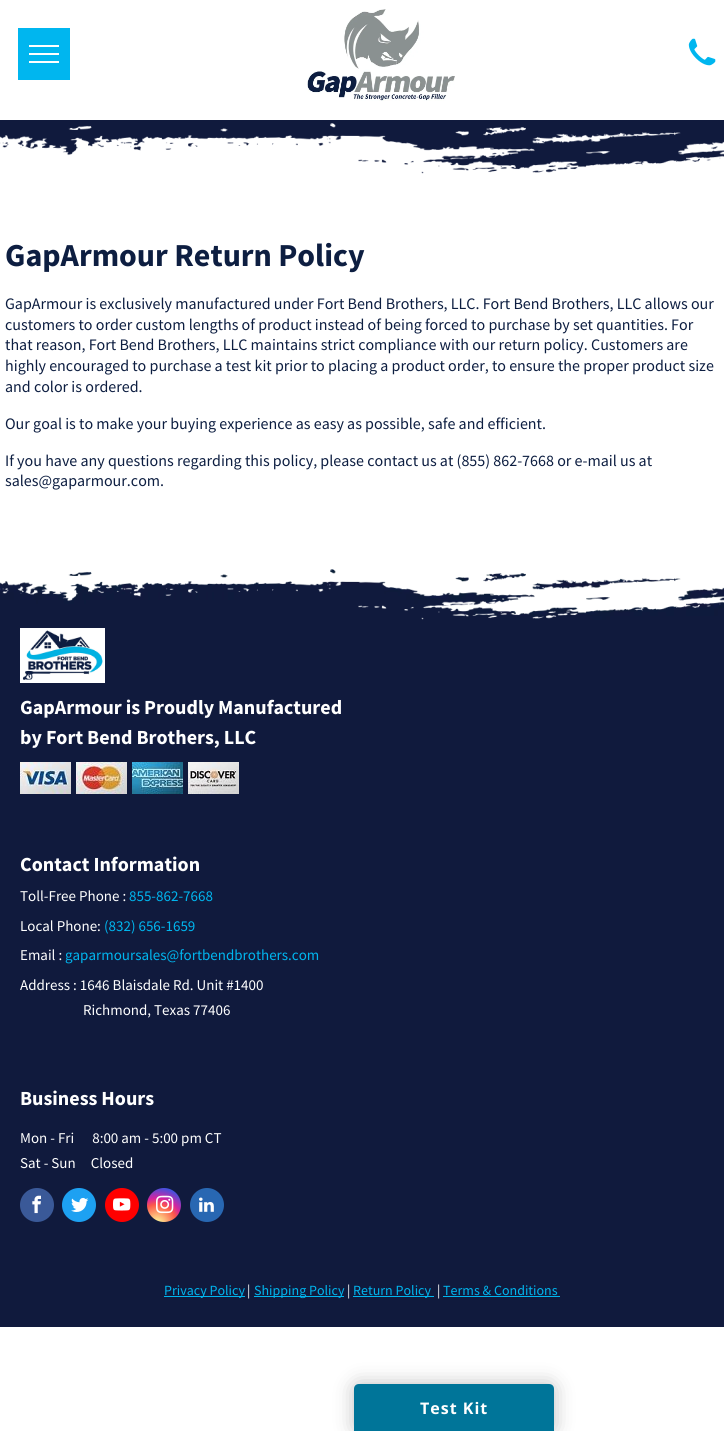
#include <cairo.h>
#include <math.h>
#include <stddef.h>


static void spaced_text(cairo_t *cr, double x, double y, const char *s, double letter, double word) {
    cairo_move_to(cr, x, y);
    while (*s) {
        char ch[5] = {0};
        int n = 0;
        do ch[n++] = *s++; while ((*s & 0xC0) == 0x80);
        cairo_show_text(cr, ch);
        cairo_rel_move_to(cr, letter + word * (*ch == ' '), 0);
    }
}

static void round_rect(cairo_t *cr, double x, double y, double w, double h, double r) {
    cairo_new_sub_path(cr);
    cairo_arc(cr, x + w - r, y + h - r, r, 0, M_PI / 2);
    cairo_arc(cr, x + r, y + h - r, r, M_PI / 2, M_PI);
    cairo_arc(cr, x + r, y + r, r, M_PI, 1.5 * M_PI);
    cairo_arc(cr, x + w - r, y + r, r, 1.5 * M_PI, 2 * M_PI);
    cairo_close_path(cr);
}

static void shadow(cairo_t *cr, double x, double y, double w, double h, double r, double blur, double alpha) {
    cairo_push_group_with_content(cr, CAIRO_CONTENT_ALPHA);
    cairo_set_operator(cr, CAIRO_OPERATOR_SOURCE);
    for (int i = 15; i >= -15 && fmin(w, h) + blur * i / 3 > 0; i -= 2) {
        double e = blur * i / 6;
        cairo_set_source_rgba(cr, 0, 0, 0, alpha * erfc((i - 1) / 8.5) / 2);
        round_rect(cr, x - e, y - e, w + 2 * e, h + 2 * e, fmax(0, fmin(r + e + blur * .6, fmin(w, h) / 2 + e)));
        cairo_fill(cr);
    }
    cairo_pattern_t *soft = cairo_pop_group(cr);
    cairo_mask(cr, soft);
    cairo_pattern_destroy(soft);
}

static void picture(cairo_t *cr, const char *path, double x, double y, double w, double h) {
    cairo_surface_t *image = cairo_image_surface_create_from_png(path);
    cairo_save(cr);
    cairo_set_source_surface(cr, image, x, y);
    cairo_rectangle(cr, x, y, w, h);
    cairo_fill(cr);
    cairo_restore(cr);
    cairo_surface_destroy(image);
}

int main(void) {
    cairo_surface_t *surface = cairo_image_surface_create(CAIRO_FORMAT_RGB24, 724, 1431);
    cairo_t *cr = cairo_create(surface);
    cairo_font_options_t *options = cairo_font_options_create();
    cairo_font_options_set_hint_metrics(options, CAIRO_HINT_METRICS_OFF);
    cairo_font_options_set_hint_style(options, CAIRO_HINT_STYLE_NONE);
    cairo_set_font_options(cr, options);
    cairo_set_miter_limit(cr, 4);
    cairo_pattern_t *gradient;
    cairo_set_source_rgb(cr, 1, 1, 1);
    cairo_paint(cr);
    cairo_set_source_rgb(cr, 0, 0.714, 0.937);
    cairo_rectangle(cr, 18, 28, 52, 52);
    cairo_fill(cr);
    cairo_set_source_rgb(cr, 1, 1, 1);
    cairo_rectangle(cr, 29, 45, 30, 2);
    cairo_fill(cr);
    cairo_rectangle(cr, 29, 53, 30, 2);
    cairo_fill(cr);
    cairo_rectangle(cr, 29, 61, 30, 2);
    cairo_fill(cr);
    picture(cr, "img1.png", 307, 9, 148, 92);
    picture(cr, "img2.png", 688, 38, 28, 28);
    cairo_set_source_rgb(cr, 0.063, 0.102, 0.239);
    cairo_rectangle(cr, 0, 120, 724, 54);
    cairo_fill(cr);
    picture(cr, "img3.png", 0, 123, 724, 52);
    cairo_select_font_face(cr, "Source Sans Pro", CAIRO_FONT_SLANT_NORMAL, CAIRO_FONT_WEIGHT_BOLD);
    cairo_set_font_size(cr, 32);
    cairo_set_source_rgb(cr, 0.051, 0.118, 0.255);
    cairo_move_to(cr, 5, 266);
    cairo_show_text(cr, "GapArmour Return Policy");
    cairo_select_font_face(cr, "Source Sans Pro", CAIRO_FONT_SLANT_NORMAL, CAIRO_FONT_WEIGHT_NORMAL);
    cairo_set_font_size(cr, 16);
    cairo_move_to(cr, 5, 309);
    cairo_show_text(cr, "GapArmour is exclusively manufactured under Fort Bend Brothers, LLC. Fort Bend Brothers, LLC allows our");
    cairo_move_to(cr, 5, 330);
    cairo_show_text(cr, "customers to order custom lengths of product instead of being forced to purchase by set quantities. For");
    cairo_move_to(cr, 5, 350);
    cairo_show_text(cr, "that reason, Fort Bend Brothers, LLC maintains strict compliance with our return policy. Customers are");
    cairo_move_to(cr, 5, 371);
    cairo_show_text(cr, "highly encouraged to purchase a test kit prior to placing a product order, to ensure the proper product size");
    cairo_move_to(cr, 5, 392);
    cairo_show_text(cr, "and color is ordered.");
    cairo_move_to(cr, 5, 429);
    cairo_show_text(cr, "Our goal is to make your buying experience as easy as possible, safe and efficient.");
    cairo_move_to(cr, 5, 466);
    cairo_show_text(cr, "If you have any questions regarding this policy, please contact us at (855) 862-7668 or e-mail us at");
    cairo_move_to(cr, 5, 486);
    cairo_show_text(cr, "sales@gaparmour.com.");
    picture(cr, "img4.png", 0, 569, 724, 52);
    cairo_set_source_rgb(cr, 0.063, 0.102, 0.239);
    cairo_rectangle(cr, 0, 621, 724, 706);
    cairo_fill(cr);
    picture(cr, "img5.png", 20, 628, 85, 55);
    cairo_select_font_face(cr, "Source Sans Pro", CAIRO_FONT_SLANT_NORMAL, CAIRO_FONT_WEIGHT_BOLD);
    cairo_set_font_size(cr, 20);
    cairo_set_source_rgb(cr, 1, 1, 1);
    cairo_move_to(cr, 20, 714);
    cairo_show_text(cr, "GapArmour is Proudly Manufactured");
    cairo_move_to(cr, 20, 744);
    cairo_show_text(cr, "by Fort Bend Brothers, LLC");
    picture(cr, "img6.png", 20, 762, 51, 32);
    picture(cr, "img7.png", 76, 762, 51, 32);
    picture(cr, "img8.png", 132, 762, 51, 32);
    picture(cr, "img9.png", 188, 762, 51, 32);
    cairo_move_to(cr, 20, 871);
    cairo_show_text(cr, "Contact Information");
    cairo_select_font_face(cr, "Source Sans Pro", CAIRO_FONT_SLANT_NORMAL, CAIRO_FONT_WEIGHT_NORMAL);
    cairo_set_font_size(cr, 15);
    cairo_move_to(cr, 20, 901);
    cairo_show_text(cr, "Toll-Free Phone :");
    cairo_set_source_rgb(cr, 0, 0.714, 0.937);
    cairo_move_to(cr, 129, 901);
    cairo_show_text(cr, "855-862-7668");
    cairo_set_source_rgb(cr, 1, 1, 1);
    cairo_move_to(cr, 20, 931);
    cairo_show_text(cr, "Local Phone:");
    cairo_set_source_rgb(cr, 0, 0.714, 0.937);
    cairo_move_to(cr, 104, 931);
    cairo_show_text(cr, "(832) 656-1659");
    cairo_set_source_rgb(cr, 1, 1, 1);
    cairo_move_to(cr, 20, 960);
    cairo_show_text(cr, "Email :");
    cairo_set_source_rgb(cr, 0, 0.714, 0.937);
    cairo_move_to(cr, 65, 960);
    cairo_show_text(cr, "gaparmoursales@fortbendbrothers.com");
    cairo_set_source_rgb(cr, 1, 1, 1);
    cairo_move_to(cr, 20, 990);
    cairo_show_text(cr, "Address : 1646 Blaisdale Rd. Unit #1400");
    cairo_move_to(cr, 83, 1015);
    cairo_show_text(cr, "Richmond, Texas 77406");
    cairo_select_font_face(cr, "Source Sans Pro", CAIRO_FONT_SLANT_NORMAL, CAIRO_FONT_WEIGHT_BOLD);
    cairo_set_font_size(cr, 20);
    cairo_move_to(cr, 20, 1105);
    cairo_show_text(cr, "Business Hours");
    cairo_select_font_face(cr, "Source Sans Pro", CAIRO_FONT_SLANT_NORMAL, CAIRO_FONT_WEIGHT_NORMAL);
    cairo_set_font_size(cr, 15);
    cairo_move_to(cr, 20, 1143);
    cairo_show_text(cr, "Mon - Fri      8:00 am - 5:00 pm CT");
    cairo_move_to(cr, 20, 1168);
    cairo_show_text(cr, "Sat - Sun     Closed");
    cairo_set_source_rgb(cr, 0.227, 0.349, 0.596);
    cairo_new_path(cr);
    cairo_arc(cr, 37, 1205, 17, 0, 2 * M_PI);
    cairo_fill(cr);
    picture(cr, "img10.png", 32, 1195, 9, 19);
    cairo_set_source_rgb(cr, 0.114, 0.631, 0.949);
    cairo_arc(cr, 79, 1205, 17, 0, 2 * M_PI);
    cairo_fill(cr);
    picture(cr, "img11.png", 71, 1197, 18, 15);
    cairo_set_source_rgb(cr, 1, 0, 0);
    cairo_arc(cr, 122, 1205, 17, 0, 2 * M_PI);
    cairo_fill(cr);
    picture(cr, "img12.png", 113, 1198, 18, 13);
    gradient = cairo_pattern_create_radial(157, 1224, 0, 157, 1224, 43);
    cairo_pattern_add_color_stop_rgba(gradient, 0, 0.992, 0.957, 0.592, 1);
    cairo_pattern_add_color_stop_rgba(gradient, 0.05, 0.992, 0.957, 0.592, 1);
    cairo_pattern_add_color_stop_rgba(gradient, 0.45, 0.992, 0.349, 0.286, 1);
    cairo_pattern_add_color_stop_rgba(gradient, 0.6, 0.839, 0.141, 0.624, 1);
    cairo_pattern_add_color_stop_rgba(gradient, 0.9, 0.157, 0.353, 0.922, 1);
    cairo_set_source(cr, gradient);
    cairo_pattern_destroy(gradient);
    cairo_arc(cr, 164, 1205, 17, 0, 2 * M_PI);
    cairo_fill(cr);
    picture(cr, "img13.png", 156, 1195, 18, 19);
    cairo_set_source_rgb(cr, 0.157, 0.404, 0.698);
    cairo_arc(cr, 207, 1205, 17, 0, 2 * M_PI);
    cairo_fill(cr);
    picture(cr, "img14.png", 199, 1197, 15, 15);
    cairo_set_source_rgb(cr, 0, 0.714, 0.937);
    cairo_rectangle(cr, 164, 1296, 81, 1);
    cairo_fill(cr);
    cairo_set_font_size(cr, 14);
    cairo_move_to(cr, 164, 1295);
    cairo_show_text(cr, "Privacy Policy");
    cairo_set_source_rgb(cr, 1, 1, 1);
    cairo_move_to(cr, 247, 1295);
    cairo_show_text(cr, "|");
    cairo_set_source_rgb(cr, 0, 0.714, 0.937);
    cairo_rectangle(cr, 254, 1296, 90, 1);
    cairo_fill(cr);
    cairo_move_to(cr, 254, 1295);
    cairo_show_text(cr, "Shipping Policy");
    cairo_set_source_rgb(cr, 1, 1, 1);
    cairo_move_to(cr, 347, 1295);
    cairo_show_text(cr, "|");
    cairo_set_source_rgb(cr, 0, 0.714, 0.937);
    cairo_rectangle(cr, 353, 1296, 81, 1);
    cairo_fill(cr);
    cairo_move_to(cr, 353, 1295);
    cairo_show_text(cr, "Return Policy");
    cairo_set_source_rgb(cr, 1, 1, 1);
    cairo_move_to(cr, 437, 1295);
    cairo_show_text(cr, "|");
    cairo_set_source_rgb(cr, 0, 0.714, 0.937);
    cairo_move_to(cr, 443, 1295);
    cairo_show_text(cr, "Terms & Conditions");
    cairo_rectangle(cr, 443, 1296, 117, 1);
    cairo_fill(cr);
    cairo_set_source_rgb(cr, 0, 0, 0);
    shadow(cr, 354, 1384, 200, 47, 5, 10, 0.25);
    cairo_set_source_rgb(cr, 0, 0.459, 0.6);
    cairo_new_path(cr);
    cairo_move_to(cr, 359, 1384);
    cairo_line_to(cr, 549, 1384);
    cairo_curve_to(cr, 552, 1384, 554, 1386, 554, 1389);
    cairo_line_to(cr, 554, 1431);
    cairo_line_to(cr, 354, 1431);
    cairo_line_to(cr, 354, 1389);
    cairo_curve_to(cr, 354, 1386, 356, 1384, 359, 1384);
    cairo_close_path(cr);
    cairo_fill(cr);
    cairo_select_font_face(cr, "Open Sans", CAIRO_FONT_SLANT_NORMAL, CAIRO_FONT_WEIGHT_BOLD);
    cairo_set_font_size(cr, 16);
    cairo_set_source_rgb(cr, 1, 1, 1);
    spaced_text(cr, 420, 1414, "Test Kit", 1, 0);
    cairo_surface_write_to_png(surface, "page.png");
    cairo_font_options_destroy(options);
    cairo_destroy(cr);
    cairo_surface_destroy(surface);
    return 0;
}
